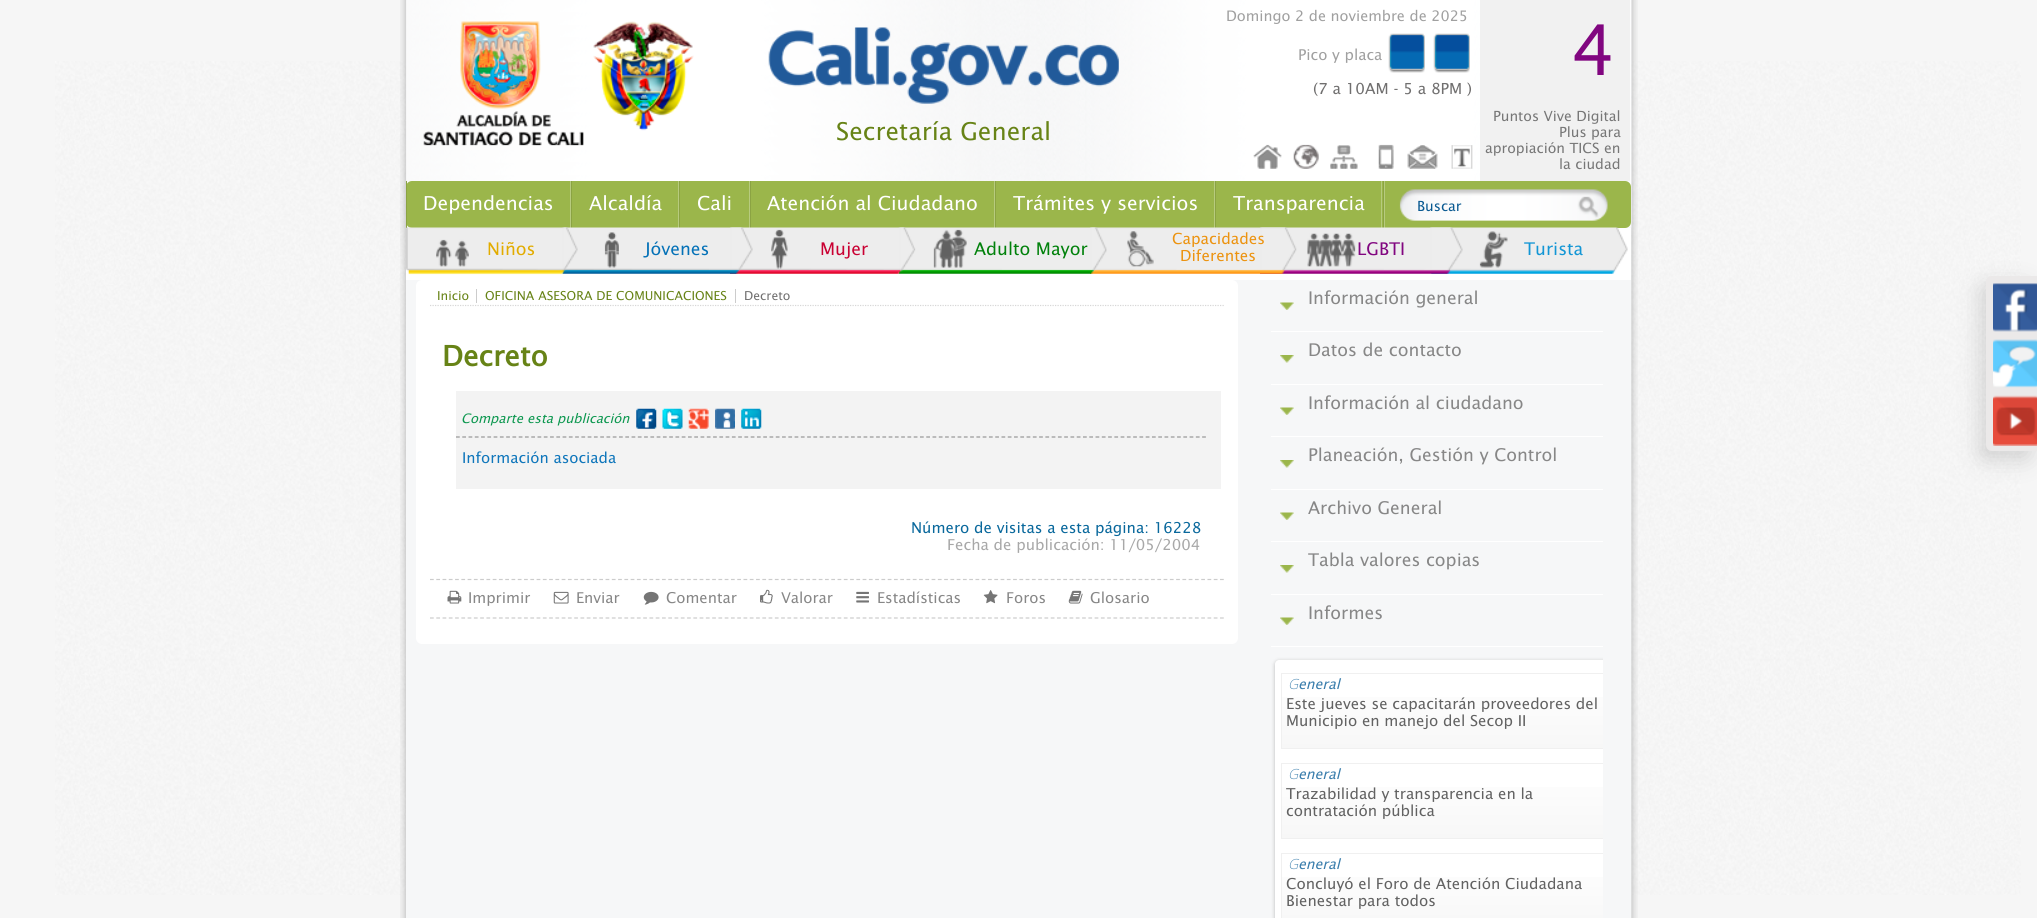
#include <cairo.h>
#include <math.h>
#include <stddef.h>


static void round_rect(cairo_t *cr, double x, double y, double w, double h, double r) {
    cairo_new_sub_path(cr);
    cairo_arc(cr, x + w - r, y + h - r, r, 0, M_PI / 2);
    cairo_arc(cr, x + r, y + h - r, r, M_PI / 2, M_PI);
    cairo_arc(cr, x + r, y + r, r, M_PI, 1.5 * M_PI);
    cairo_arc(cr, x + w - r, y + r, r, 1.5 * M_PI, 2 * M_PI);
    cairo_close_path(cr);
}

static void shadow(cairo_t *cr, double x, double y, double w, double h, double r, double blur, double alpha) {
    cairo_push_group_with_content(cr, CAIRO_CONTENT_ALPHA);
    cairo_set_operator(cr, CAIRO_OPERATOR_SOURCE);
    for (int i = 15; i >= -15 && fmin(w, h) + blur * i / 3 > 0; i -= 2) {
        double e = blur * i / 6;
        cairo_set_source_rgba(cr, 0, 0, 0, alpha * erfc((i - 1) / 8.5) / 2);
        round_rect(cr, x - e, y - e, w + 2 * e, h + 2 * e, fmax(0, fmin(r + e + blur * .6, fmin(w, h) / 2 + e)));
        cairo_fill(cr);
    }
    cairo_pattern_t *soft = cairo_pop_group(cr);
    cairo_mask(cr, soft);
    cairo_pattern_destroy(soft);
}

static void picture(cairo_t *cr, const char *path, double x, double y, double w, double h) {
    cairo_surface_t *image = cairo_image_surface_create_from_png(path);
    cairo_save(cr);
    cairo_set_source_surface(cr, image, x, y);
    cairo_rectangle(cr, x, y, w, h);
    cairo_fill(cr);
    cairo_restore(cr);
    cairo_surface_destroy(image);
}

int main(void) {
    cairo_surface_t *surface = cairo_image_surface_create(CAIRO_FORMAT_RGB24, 2037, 918);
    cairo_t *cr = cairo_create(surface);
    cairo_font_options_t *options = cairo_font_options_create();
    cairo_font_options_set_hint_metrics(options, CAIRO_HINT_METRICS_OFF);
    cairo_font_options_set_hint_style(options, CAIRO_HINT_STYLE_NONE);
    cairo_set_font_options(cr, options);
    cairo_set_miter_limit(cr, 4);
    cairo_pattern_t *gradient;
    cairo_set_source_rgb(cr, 0.961, 0.961, 0.961);
    cairo_paint(cr);
    picture(cr, "img1.png", 55, 61, 1966, 834);
    picture(cr, "img2.png", 400, 0, 1238, 918);
    picture(cr, "img3.png", 406, 0, 1226, 228);
    picture(cr, "img4.png", 423, 21, 271, 125);
    picture(cr, "img5.png", 768, 27, 351, 77);
    cairo_select_font_face(cr, "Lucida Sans", CAIRO_FONT_SLANT_NORMAL, CAIRO_FONT_WEIGHT_NORMAL);
    cairo_set_font_size(cr, 24.5);
    cairo_set_source_rgb(cr, 0.404, 0.514, 0.086);
    cairo_move_to(cr, 836, 140);
    cairo_show_text(cr, "Secretaría General");
    cairo_set_font_size(cr, 14.5);
    cairo_set_source_rgb(cr, 0.627, 0.627, 0.627);
    cairo_move_to(cr, 1226, 21);
    cairo_show_text(cr, "Domingo 2 de noviembre de 2025");
    cairo_set_font_size(cr, 14.9);
    cairo_move_to(cr, 1298, 60);
    cairo_show_text(cr, "Pico y placa");
    picture(cr, "img6.png", 1388, 33, 37, 40);
    picture(cr, "img7.png", 1433, 33, 37, 40);
    cairo_set_font_size(cr, 15.25);
    cairo_set_source_rgb(cr, 0.439, 0.435, 0.435);
    cairo_move_to(cr, 1313, 94);
    cairo_show_text(cr, "(7 a 10AM - 5 a 8PM )");
    cairo_set_source_rgb(cr, 0.945, 0.945, 0.945);
    cairo_rectangle(cr, 1480, 0, 150, 181);
    cairo_fill(cr);
    cairo_set_font_size(cr, 70);
    cairo_set_source_rgb(cr, 0.506, 0.024, 0.502);
    cairo_move_to(cr, 1571, 75);
    cairo_show_text(cr, "4");
    cairo_set_font_size(cr, 14);
    cairo_set_source_rgb(cr, 0.467, 0.467, 0.467);
    cairo_move_to(cr, 1493, 121);
    cairo_show_text(cr, "Puntos Vive Digital");
    cairo_move_to(cr, 1559, 137);
    cairo_show_text(cr, "Plus para");
    cairo_move_to(cr, 1485, 153);
    cairo_show_text(cr, "apropiación TICS en");
    cairo_move_to(cr, 1559, 169);
    cairo_show_text(cr, "la ciudad");
    picture(cr, "img8.png", 1253, 144, 29, 25);
    picture(cr, "img9.png", 1293, 144, 26, 25);
    picture(cr, "img10.png", 1330, 145, 28, 24);
    picture(cr, "img11.png", 1378, 144, 16, 25);
    picture(cr, "img12.png", 1407, 145, 31, 24);
    picture(cr, "img13.png", 1451, 145, 22, 24);
    cairo_set_source_rgb(cr, 0.608, 0.714, 0.294);
    round_rect(cr, 406, 181, 1225, 47, 6);
    cairo_fill(cr);
    cairo_set_source_rgb(cr, 0.718, 0.796, 0.494);
    cairo_rectangle(cr, 570, 181, 1, 47);
    cairo_fill(cr);
    cairo_set_source_rgb(cr, 0.545, 0.639, 0.263);
    cairo_rectangle(cr, 406, 181, 1, 47);
    cairo_fill(cr);
    cairo_set_font_size(cr, 19.25);
    cairo_set_source_rgb(cr, 1, 1, 1);
    cairo_move_to(cr, 423, 210);
    cairo_show_text(cr, "Dependencias");
    cairo_set_source_rgb(cr, 0.718, 0.796, 0.494);
    cairo_rectangle(cr, 678, 181, 1, 47);
    cairo_fill(cr);
    cairo_set_source_rgb(cr, 0.545, 0.639, 0.263);
    cairo_rectangle(cr, 571, 181, 1, 47);
    cairo_fill(cr);
    cairo_set_source_rgb(cr, 1, 1, 1);
    cairo_move_to(cr, 589, 210);
    cairo_show_text(cr, "Alcaldía");
    cairo_set_source_rgb(cr, 0.718, 0.796, 0.494);
    cairo_rectangle(cr, 749, 181, 1, 47);
    cairo_fill(cr);
    cairo_set_source_rgb(cr, 0.545, 0.639, 0.263);
    cairo_rectangle(cr, 679, 181, 1, 47);
    cairo_fill(cr);
    cairo_set_source_rgb(cr, 1, 1, 1);
    cairo_move_to(cr, 697, 210);
    cairo_show_text(cr, "Cali");
    cairo_set_source_rgb(cr, 0.718, 0.796, 0.494);
    cairo_rectangle(cr, 994, 181, 1, 47);
    cairo_fill(cr);
    cairo_set_source_rgb(cr, 0.545, 0.639, 0.263);
    cairo_rectangle(cr, 750, 181, 1, 47);
    cairo_fill(cr);
    cairo_set_source_rgb(cr, 1, 1, 1);
    cairo_move_to(cr, 767, 210);
    cairo_show_text(cr, "Atención al Ciudadano");
    cairo_set_source_rgb(cr, 0.718, 0.796, 0.494);
    cairo_rectangle(cr, 1214, 181, 1, 47);
    cairo_fill(cr);
    cairo_set_source_rgb(cr, 0.545, 0.639, 0.263);
    cairo_rectangle(cr, 995, 181, 1, 47);
    cairo_fill(cr);
    cairo_set_source_rgb(cr, 1, 1, 1);
    cairo_move_to(cr, 1013, 210);
    cairo_show_text(cr, "Trámites y servicios");
    cairo_set_source_rgb(cr, 0.718, 0.796, 0.494);
    cairo_rectangle(cr, 1381, 181, 1, 47);
    cairo_fill(cr);
    cairo_set_source_rgb(cr, 0.545, 0.639, 0.263);
    cairo_rectangle(cr, 1215, 181, 1, 47);
    cairo_fill(cr);
    cairo_set_source_rgb(cr, 1, 1, 1);
    cairo_move_to(cr, 1233, 210);
    cairo_show_text(cr, "Transparencia");
    cairo_set_source_rgb(cr, 0.718, 0.796, 0.494);
    cairo_rectangle(cr, 1384, 181, 1, 47);
    cairo_fill(cr);
    cairo_set_source_rgb(cr, 0.545, 0.639, 0.263);
    cairo_rectangle(cr, 1383, 181, 1, 47);
    cairo_fill(cr);
    picture(cr, "img14.png", 1399, 189, 209, 32);
    cairo_set_font_size(cr, 14);
    cairo_set_source_rgb(cr, 0.039, 0.349, 0.569);
    cairo_move_to(cr, 1417, 211);
    cairo_show_text(cr, "Buscar");
    cairo_set_source_rgb(cr, 1, 1, 1);
    cairo_rectangle(cr, 406, 228, 1225, 52);
    cairo_fill(cr);
    picture(cr, "img21.png", 1430, 227, 198, 47);
    picture(cr, "img20.png", 1260, 227, 203, 47);
    picture(cr, "img19.png", 1090, 227, 207, 47);
    picture(cr, "img18.png", 898, 227, 209, 47);
    picture(cr, "img17.png", 730, 227, 186, 47);
    picture(cr, "img16.png", 562, 227, 191, 47);
    picture(cr, "img15.png", 406, 227, 172, 48);
    cairo_set_font_size(cr, 17.5);
    cairo_set_source_rgb(cr, 0.886, 0.675, 0);
    cairo_move_to(cr, 487, 255);
    cairo_show_text(cr, "Niños");
    cairo_set_source_rgb(cr, 0.016, 0.443, 0.718);
    cairo_move_to(cr, 645, 255);
    cairo_show_text(cr, "Jóvenes");
    cairo_set_source_rgb(cr, 0.788, 0, 0.196);
    cairo_move_to(cr, 820, 255);
    cairo_show_text(cr, "Mujer");
    cairo_set_source_rgb(cr, 0.004, 0.506, 0.043);
    cairo_move_to(cr, 974, 255);
    cairo_show_text(cr, "Adulto Mayor");
    cairo_set_font_size(cr, 15.25);
    cairo_set_source_rgb(cr, 0.922, 0.576, 0.063);
    cairo_move_to(cr, 1172, 244);
    cairo_show_text(cr, "Capacidades");
    cairo_move_to(cr, 1180, 261);
    cairo_show_text(cr, "Diferentes");
    cairo_set_font_size(cr, 17.5);
    cairo_set_source_rgb(cr, 0.506, 0.024, 0.502);
    cairo_move_to(cr, 1357, 255);
    cairo_show_text(cr, "LGBTI");
    cairo_set_source_rgb(cr, 0.078, 0.588, 0.835);
    cairo_move_to(cr, 1524, 255);
    cairo_show_text(cr, "Turista");
    cairo_set_source_rgb(cr, 0.961, 0.965, 0.969);
    cairo_rectangle(cr, 406, 280, 1225, 638);
    cairo_fill(cr);
    cairo_set_source_rgb(cr, 1, 1, 1);
    round_rect(cr, 416, 280, 822, 364, 6);
    cairo_fill(cr);
    cairo_new_path(cr);
    cairo_move_to(cr, 430, 305.5);
    cairo_line_to(cr, 1224, 305.5);
    cairo_set_source_rgb(cr, 0.843, 0.843, 0.843);
    cairo_set_line_width(cr, 1.2);
    cairo_set_dash(cr, (double[]){1.25, 1.25}, 2, 0);
    cairo_stroke(cr);
    cairo_set_font_size(cr, 12.3);
    cairo_set_source_rgb(cr, 0.404, 0.514, 0.086);
    cairo_move_to(cr, 437, 300);
    cairo_show_text(cr, "Inicio");
    cairo_set_source_rgb(cr, 0.8, 0.8, 0.8);
    cairo_rectangle(cr, 476, 289, 1, 14);
    cairo_fill(cr);
    cairo_set_source_rgb(cr, 0.404, 0.514, 0.086);
    cairo_move_to(cr, 485, 300);
    cairo_show_text(cr, "OFICINA ASESORA DE COMUNICACIONES");
    cairo_set_source_rgb(cr, 0.8, 0.8, 0.8);
    cairo_rectangle(cr, 735, 289, 1, 14);
    cairo_fill(cr);
    cairo_set_source_rgb(cr, 0.439, 0.435, 0.435);
    cairo_move_to(cr, 744, 300);
    cairo_show_text(cr, "Decreto");
    cairo_select_font_face(cr, "Lucida Sans", CAIRO_FONT_SLANT_NORMAL, CAIRO_FONT_WEIGHT_BOLD);
    cairo_set_font_size(cr, 28);
    cairo_set_source_rgb(cr, 0.404, 0.514, 0.086);
    cairo_move_to(cr, 442, 366);
    cairo_show_text(cr, "Decreto");
    cairo_set_source_rgb(cr, 0.953, 0.953, 0.953);
    cairo_rectangle(cr, 456, 391, 765, 98);
    cairo_fill(cr);
    cairo_new_path(cr);
    cairo_move_to(cr, 456, 437);
    cairo_line_to(cr, 1206, 437);
    cairo_set_source_rgb(cr, 0.592, 0.592, 0.592);
    cairo_set_dash(cr, (double[]){3.75, 2.52}, 2, 0);
    cairo_stroke(cr);
    cairo_select_font_face(cr, "Lucida Sans", CAIRO_FONT_SLANT_ITALIC, CAIRO_FONT_WEIGHT_NORMAL);
    cairo_set_font_size(cr, 13);
    cairo_set_source_rgb(cr, 0.047, 0.592, 0.31);
    cairo_move_to(cr, 461, 423);
    cairo_show_text(cr, "Comparte esta publicación");
    picture(cr, "img22.png", 636, 408, 21, 21);
    picture(cr, "img23.png", 662, 408, 21, 21);
    picture(cr, "img24.png", 688, 408, 21, 21);
    picture(cr, "img25.png", 715, 408, 20, 21);
    picture(cr, "img26.png", 741, 408, 21, 21);
    cairo_select_font_face(cr, "Lucida Sans", CAIRO_FONT_SLANT_NORMAL, CAIRO_FONT_WEIGHT_NORMAL);
    cairo_set_font_size(cr, 14.9);
    cairo_set_source_rgb(cr, 0.059, 0.463, 0.733);
    cairo_move_to(cr, 462, 463);
    cairo_show_text(cr, "Información asociada");
    cairo_set_font_size(cr, 15.05);
    cairo_set_source_rgb(cr, 0.039, 0.408, 0.612);
    cairo_move_to(cr, 911, 533);
    cairo_show_text(cr, "Número de visitas a esta página: 16228");
    cairo_set_source_rgb(cr, 0.659, 0.659, 0.659);
    cairo_move_to(cr, 947, 550);
    cairo_show_text(cr, "Fecha de publicación: 11/05/2004");
    cairo_new_path(cr);
    cairo_move_to(cr, 430, 579.5);
    cairo_line_to(cr, 1224, 579.5);
    cairo_set_source_rgb(cr, 0.8, 0.8, 0.8);
    cairo_stroke(cr);
    cairo_new_path(cr);
    cairo_move_to(cr, 430, 618);
    cairo_line_to(cr, 1224, 618);
    cairo_stroke(cr);
    picture(cr, "img27.png", 447, 590, 15, 14);
    cairo_set_font_size(cr, 14.9);
    cairo_set_source_rgb(cr, 0.529, 0.529, 0.529);
    cairo_move_to(cr, 468, 603);
    cairo_show_text(cr, "Imprimir");
    picture(cr, "img28.png", 553, 591, 16, 13);
    cairo_move_to(cr, 576, 603);
    cairo_show_text(cr, "Enviar");
    picture(cr, "img29.png", 643, 591, 16, 14);
    cairo_move_to(cr, 666, 603);
    cairo_show_text(cr, "Comentar");
    picture(cr, "img30.png", 760, 589, 13, 15);
    cairo_move_to(cr, 781, 603);
    cairo_show_text(cr, "Valorar");
    picture(cr, "img31.png", 856, 591, 13, 12);
    cairo_move_to(cr, 877, 603);
    cairo_show_text(cr, "Estadísticas");
    picture(cr, "img32.png", 983, 590, 15, 14);
    cairo_move_to(cr, 1006, 603);
    cairo_show_text(cr, "Foros");
    picture(cr, "img33.png", 1068, 590, 15, 14);
    cairo_move_to(cr, 1090, 603);
    cairo_show_text(cr, "Glosario");
    picture(cr, "img34.png", 1280, 302, 14, 8);
    cairo_set_source_rgb(cr, 1, 1, 1);
    cairo_rectangle(cr, 1271, 331, 332, 1);
    cairo_fill(cr);
    cairo_set_font_size(cr, 17.5);
    cairo_set_source_rgb(cr, 0.529, 0.529, 0.529);
    cairo_move_to(cr, 1308, 304);
    cairo_show_text(cr, "Información general");
    picture(cr, "img35.png", 1280, 355, 14, 8);
    cairo_set_source_rgb(cr, 1, 1, 1);
    cairo_rectangle(cr, 1271, 384, 332, 1);
    cairo_fill(cr);
    cairo_set_source_rgb(cr, 0.529, 0.529, 0.529);
    cairo_move_to(cr, 1308, 356);
    cairo_show_text(cr, "Datos de contacto");
    picture(cr, "img34.png", 1280, 407, 14, 8);
    cairo_set_source_rgb(cr, 1, 1, 1);
    cairo_rectangle(cr, 1271, 436, 332, 1);
    cairo_fill(cr);
    cairo_set_source_rgb(cr, 0.529, 0.529, 0.529);
    cairo_move_to(cr, 1308, 409);
    cairo_show_text(cr, "Información al ciudadano");
    picture(cr, "img35.png", 1280, 460, 14, 8);
    cairo_set_source_rgb(cr, 1, 1, 1);
    cairo_rectangle(cr, 1271, 489, 332, 1);
    cairo_fill(cr);
    cairo_set_source_rgb(cr, 0.529, 0.529, 0.529);
    cairo_move_to(cr, 1308, 461);
    cairo_show_text(cr, "Planeación, Gestión y Control");
    picture(cr, "img36.png", 1280, 512, 14, 8);
    cairo_set_source_rgb(cr, 1, 1, 1);
    cairo_rectangle(cr, 1271, 541, 332, 1);
    cairo_fill(cr);
    cairo_set_source_rgb(cr, 0.529, 0.529, 0.529);
    cairo_move_to(cr, 1308, 514);
    cairo_show_text(cr, "Archivo General");
    picture(cr, "img35.png", 1280, 565, 14, 8);
    cairo_set_source_rgb(cr, 1, 1, 1);
    cairo_rectangle(cr, 1271, 594, 332, 1);
    cairo_fill(cr);
    cairo_set_source_rgb(cr, 0.529, 0.529, 0.529);
    cairo_move_to(cr, 1308, 566);
    cairo_show_text(cr, "Tabla valores copias");
    picture(cr, "img34.png", 1280, 617, 14, 8);
    cairo_set_source_rgb(cr, 1, 1, 1);
    cairo_rectangle(cr, 1271, 646, 332, 1);
    cairo_fill(cr);
    cairo_set_source_rgb(cr, 0.529, 0.529, 0.529);
    cairo_move_to(cr, 1308, 619);
    cairo_show_text(cr, "Informes");
    cairo_save(cr);
    cairo_rectangle(cr, 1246, 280, 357, 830);
    cairo_clip(cr);
    cairo_set_source_rgb(cr, 0.196, 0.196, 0.196);
    shadow(cr, 1275, 661, 341, 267, 4, 2, 0.3);
    cairo_restore(cr);
    cairo_set_source_rgb(cr, 1, 1, 1);
    cairo_new_path(cr);
    cairo_move_to(cr, 1279, 660);
    cairo_line_to(cr, 1603, 660);
    cairo_line_to(cr, 1603, 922);
    cairo_line_to(cr, 1279, 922);
    cairo_curve_to(cr, 1277, 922, 1275, 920, 1275, 918);
    cairo_line_to(cr, 1275, 664);
    cairo_curve_to(cr, 1275, 662, 1277, 660, 1279, 660);
    cairo_close_path(cr);
    cairo_fill(cr);
    gradient = cairo_pattern_create_linear(1283, 674, 1283, 748);
    cairo_pattern_add_color_stop_rgba(gradient, 0, 1, 1, 1, 1);
    cairo_pattern_add_color_stop_rgba(gradient, 1, 0.969, 0.969, 0.969, 1);
    cairo_set_source(cr, gradient);
    cairo_pattern_destroy(gradient);
    cairo_rectangle(cr, 1282, 697, 321, 51);
    cairo_fill(cr);
    cairo_save(cr);
    cairo_rectangle(cr, 1275, 660, 328, 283);
    cairo_clip(cr);
    cairo_rectangle(cr, 1281.5, 673.5, 328, 75);
    cairo_set_source_rgb(cr, 0.941, 0.941, 0.941);
    cairo_set_line_width(cr, 1);
    cairo_set_dash(cr, NULL, 0, 0);
    cairo_stroke(cr);
    cairo_restore(cr);
    cairo_select_font_face(cr, "Noto Sans ExtraLight", CAIRO_FONT_SLANT_ITALIC, CAIRO_FONT_WEIGHT_NORMAL);
    cairo_set_font_size(cr, 14);
    cairo_set_source_rgb(cr, 0.224, 0.49, 0.675);
    cairo_move_to(cr, 1288, 689);
    cairo_show_text(cr, "G");
    cairo_select_font_face(cr, "Lucida Sans", CAIRO_FONT_SLANT_ITALIC, CAIRO_FONT_WEIGHT_NORMAL);
    cairo_move_to(cr, 1298, 689);
    cairo_show_text(cr, "eneral");
    cairo_select_font_face(cr, "Lucida Sans", CAIRO_FONT_SLANT_NORMAL, CAIRO_FONT_WEIGHT_NORMAL);
    cairo_set_font_size(cr, 15.05);
    cairo_set_source_rgb(cr, 0.384, 0.384, 0.384);
    cairo_move_to(cr, 1286, 709);
    cairo_show_text(cr, "Este jueves se capacitarán proveedores del");
    cairo_move_to(cr, 1286, 726);
    cairo_show_text(cr, "Municipio en manejo del Secop II");
    gradient = cairo_pattern_create_linear(1283, 764, 1283, 838);
    cairo_pattern_add_color_stop_rgba(gradient, 0, 1, 1, 1, 1);
    cairo_pattern_add_color_stop_rgba(gradient, 1, 0.969, 0.969, 0.969, 1);
    cairo_set_source(cr, gradient);
    cairo_pattern_destroy(gradient);
    cairo_rectangle(cr, 1282, 787, 321, 51);
    cairo_fill(cr);
    cairo_save(cr);
    cairo_rectangle(cr, 1275, 660, 328, 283);
    cairo_clip(cr);
    cairo_rectangle(cr, 1281.5, 763.5, 328, 75);
    cairo_set_source_rgb(cr, 0.941, 0.941, 0.941);
    cairo_set_line_width(cr, 1);
    cairo_set_dash(cr, NULL, 0, 0);
    cairo_stroke(cr);
    cairo_restore(cr);
    cairo_select_font_face(cr, "Noto Sans ExtraLight", CAIRO_FONT_SLANT_ITALIC, CAIRO_FONT_WEIGHT_NORMAL);
    cairo_set_font_size(cr, 14);
    cairo_set_source_rgb(cr, 0.224, 0.49, 0.675);
    cairo_move_to(cr, 1288, 779);
    cairo_show_text(cr, "G");
    cairo_select_font_face(cr, "Lucida Sans", CAIRO_FONT_SLANT_ITALIC, CAIRO_FONT_WEIGHT_NORMAL);
    cairo_move_to(cr, 1298, 779);
    cairo_show_text(cr, "eneral");
    cairo_select_font_face(cr, "Lucida Sans", CAIRO_FONT_SLANT_NORMAL, CAIRO_FONT_WEIGHT_NORMAL);
    cairo_set_font_size(cr, 15.05);
    cairo_set_source_rgb(cr, 0.384, 0.384, 0.384);
    cairo_move_to(cr, 1286, 799);
    cairo_show_text(cr, "Trazabilidad y transparencia en la");
    cairo_move_to(cr, 1286, 816);
    cairo_show_text(cr, "contratación pública");
    gradient = cairo_pattern_create_linear(1283, 854, 1283, 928);
    cairo_pattern_add_color_stop_rgba(gradient, 0, 1, 1, 1, 1);
    cairo_pattern_add_color_stop_rgba(gradient, 1, 0.969, 0.969, 0.969, 1);
    cairo_set_source(cr, gradient);
    cairo_pattern_destroy(gradient);
    cairo_rectangle(cr, 1282, 877, 321, 41);
    cairo_fill(cr);
    cairo_save(cr);
    cairo_rectangle(cr, 1275, 660, 328, 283);
    cairo_clip(cr);
    cairo_rectangle(cr, 1281.5, 853.5, 328, 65);
    cairo_set_source_rgb(cr, 0.941, 0.941, 0.941);
    cairo_set_line_width(cr, 1);
    cairo_set_dash(cr, NULL, 0, 0);
    cairo_stroke(cr);
    cairo_restore(cr);
    cairo_select_font_face(cr, "Noto Sans ExtraLight", CAIRO_FONT_SLANT_ITALIC, CAIRO_FONT_WEIGHT_NORMAL);
    cairo_set_font_size(cr, 14);
    cairo_set_source_rgb(cr, 0.224, 0.49, 0.675);
    cairo_move_to(cr, 1288, 869);
    cairo_show_text(cr, "G");
    cairo_select_font_face(cr, "Lucida Sans", CAIRO_FONT_SLANT_ITALIC, CAIRO_FONT_WEIGHT_NORMAL);
    cairo_move_to(cr, 1298, 869);
    cairo_show_text(cr, "eneral");
    cairo_select_font_face(cr, "Lucida Sans", CAIRO_FONT_SLANT_NORMAL, CAIRO_FONT_WEIGHT_NORMAL);
    cairo_set_font_size(cr, 15.05);
    cairo_set_source_rgb(cr, 0.384, 0.384, 0.384);
    cairo_move_to(cr, 1286, 889);
    cairo_show_text(cr, "Concluyó el Foro de Atención Ciudadana");
    cairo_move_to(cr, 1286, 906);
    cairo_show_text(cr, "Bienestar para todos");
    cairo_set_source_rgb(cr, 0.196, 0.196, 0.196);
    shadow(cr, 1980, 285, 51, 175, 6, 11, 0.18);
    cairo_set_source_rgb(cr, 0.918, 0.914, 0.914);
    cairo_new_path(cr);
    cairo_move_to(cr, 1992, 276);
    cairo_line_to(cr, 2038, 276);
    cairo_line_to(cr, 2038, 451);
    cairo_line_to(cr, 1992, 451);
    cairo_curve_to(cr, 1988.5, 451, 1986, 448.5, 1986, 445);
    cairo_line_to(cr, 1986, 282);
    cairo_curve_to(cr, 1986, 278.5, 1988.5, 276, 1992, 276);
    cairo_close_path(cr);
    cairo_fill(cr);
    picture(cr, "img37.png", 1993, 283, 44, 49);
    picture(cr, "img38.png", 1993, 339, 44, 49);
    picture(cr, "img39.png", 1993, 395, 44, 51);
    cairo_surface_write_to_png(surface, "page.png");
    cairo_font_options_destroy(options);
    cairo_destroy(cr);
    cairo_surface_destroy(surface);
    return 0;
}
